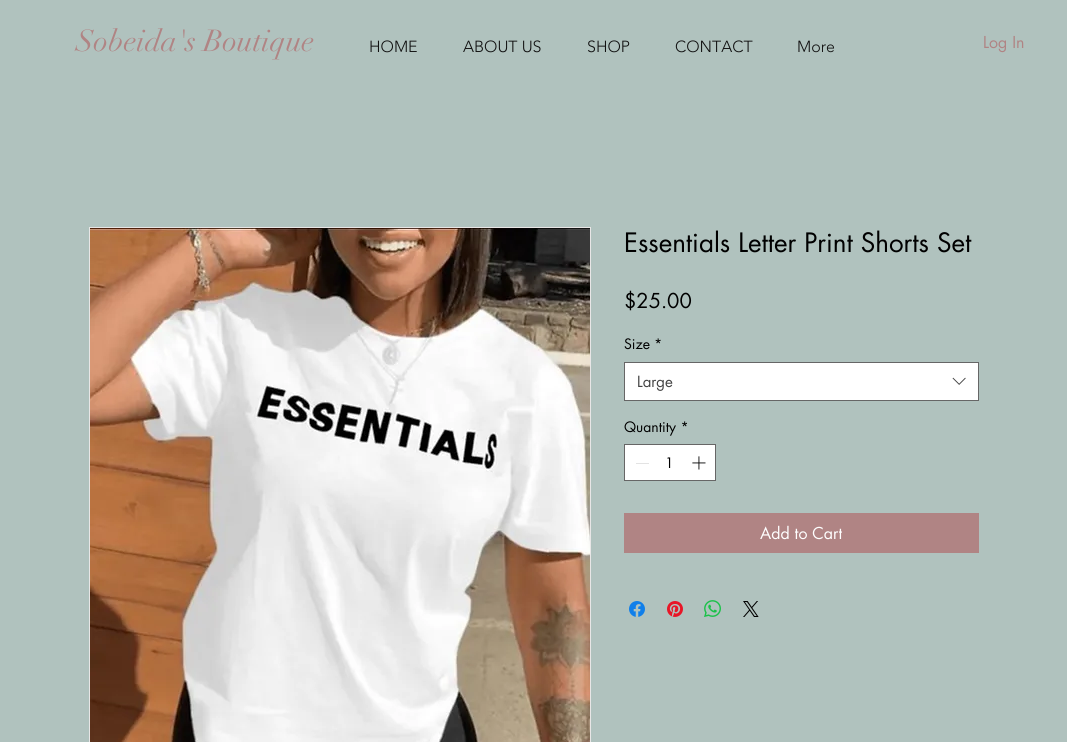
#include <cairo.h>
#include <math.h>
#include <stddef.h>


static void picture(cairo_t *cr, const char *path, double x, double y, double w, double h) {
    cairo_surface_t *image = cairo_image_surface_create_from_png(path);
    cairo_save(cr);
    cairo_set_source_surface(cr, image, x, y);
    cairo_rectangle(cr, x, y, w, h);
    cairo_fill(cr);
    cairo_restore(cr);
    cairo_surface_destroy(image);
}

int main(void) {
    cairo_surface_t *surface = cairo_image_surface_create(CAIRO_FORMAT_RGB24, 1067, 742);
    cairo_t *cr = cairo_create(surface);
    cairo_font_options_t *options = cairo_font_options_create();
    cairo_font_options_set_hint_metrics(options, CAIRO_HINT_METRICS_OFF);
    cairo_font_options_set_hint_style(options, CAIRO_HINT_STYLE_NONE);
    cairo_set_font_options(cr, options);
    cairo_set_miter_limit(cr, 4);
    cairo_set_source_rgb(cr, 0.69, 0.761, 0.745);
    cairo_paint(cr);
    cairo_select_font_face(cr, "didot", CAIRO_FONT_SLANT_NORMAL, CAIRO_FONT_WEIGHT_NORMAL);
    cairo_set_font_size(cr, 30);
    cairo_set_source_rgb(cr, 0.69, 0.518, 0.518);
    cairo_move_to(cr, 76, 51);
    cairo_show_text(cr, "Sobeida's Boutique");
    cairo_select_font_face(cr, "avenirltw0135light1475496 Light", CAIRO_FONT_SLANT_NORMAL, CAIRO_FONT_WEIGHT_NORMAL);
    cairo_set_font_size(cr, 16);
    cairo_set_source_rgb(cr, 0.067, 0.067, 0.067);
    cairo_move_to(cr, 369, 52);
    cairo_show_text(cr, "HOME");
    cairo_move_to(cr, 463, 52);
    cairo_show_text(cr, "ABOUT US");
    cairo_move_to(cr, 587, 52);
    cairo_show_text(cr, "SHOP");
    cairo_move_to(cr, 675, 52);
    cairo_show_text(cr, "CONTACT");
    cairo_move_to(cr, 797, 52);
    cairo_show_text(cr, "More");
    cairo_select_font_face(cr, "futura", CAIRO_FONT_SLANT_NORMAL, CAIRO_FONT_WEIGHT_NORMAL);
    cairo_set_source_rgb(cr, 0.69, 0.518, 0.518);
    cairo_move_to(cr, 983, 48);
    cairo_show_text(cr, "Log In");
    cairo_rectangle(cr, 89.5, 227.5, 501, 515);
    cairo_set_source_rgb(cr, 0.91, 0.902, 0.902);
    cairo_set_line_width(cr, 1);
    cairo_stroke(cr);
    picture(cr, "img1.png", 90, 228, 500, 514);
    cairo_set_font_size(cr, 26);
    cairo_set_source_rgb(cr, 0, 0, 0);
    cairo_move_to(cr, 624, 252);
    cairo_show_text(cr, "Essentials Letter Print Shorts Set");
    cairo_set_font_size(cr, 20);
    cairo_move_to(cr, 624, 308);
    cairo_show_text(cr, "$25.00");
    cairo_set_font_size(cr, 14);
    cairo_move_to(cr, 624, 349);
    cairo_show_text(cr, "Size");
    cairo_move_to(cr, 654, 349);
    cairo_show_text(cr, "*");
    cairo_set_source_rgb(cr, 1, 1, 1);
    cairo_rectangle(cr, 624.5, 362.5, 354, 38);
    cairo_fill_preserve(cr);
    cairo_set_source_rgb(cr, 0.4, 0.4, 0.4);
    cairo_stroke(cr);
    cairo_set_font_size(cr, 15);
    cairo_set_source_rgb(cr, 0.267, 0.267, 0.267);
    cairo_move_to(cr, 637, 387);
    cairo_show_text(cr, "Large");
    picture(cr, "img2.png", 952, 377, 14, 8);
    cairo_set_font_size(cr, 14);
    cairo_set_source_rgb(cr, 0, 0, 0);
    cairo_move_to(cr, 624, 432);
    cairo_show_text(cr, "Quantity *");
    cairo_set_source_rgb(cr, 1, 1, 1);
    cairo_rectangle(cr, 624.5, 444.5, 91, 36);
    cairo_fill_preserve(cr);
    cairo_set_source_rgb(cr, 0.4, 0.4, 0.4);
    cairo_stroke(cr);
    cairo_set_source_rgb(cr, 0.89, 0.89, 0.89);
    cairo_rectangle(cr, 636, 463, 13, 1);
    cairo_fill(cr);
    cairo_set_source_rgb(cr, 0, 0, 0);
    cairo_move_to(cr, 665, 468);
    cairo_show_text(cr, "1");
    picture(cr, "img3.png", 692, 456, 14, 14);
    cairo_set_source_rgb(cr, 0.69, 0.518, 0.518);
    cairo_rectangle(cr, 624, 513, 355, 40);
    cairo_fill(cr);
    cairo_set_font_size(cr, 16);
    cairo_set_source_rgb(cr, 1, 1, 1);
    cairo_move_to(cr, 760, 539);
    cairo_show_text(cr, "Add to Cart");
    picture(cr, "img4.png", 629, 601, 16, 16);
    picture(cr, "img5.png", 667, 601, 16, 16);
    picture(cr, "img6.png", 704, 600, 17, 17);
    picture(cr, "img7.png", 743, 601, 16, 16);
    cairo_surface_write_to_png(surface, "page.png");
    cairo_font_options_destroy(options);
    cairo_destroy(cr);
    cairo_surface_destroy(surface);
    return 0;
}
